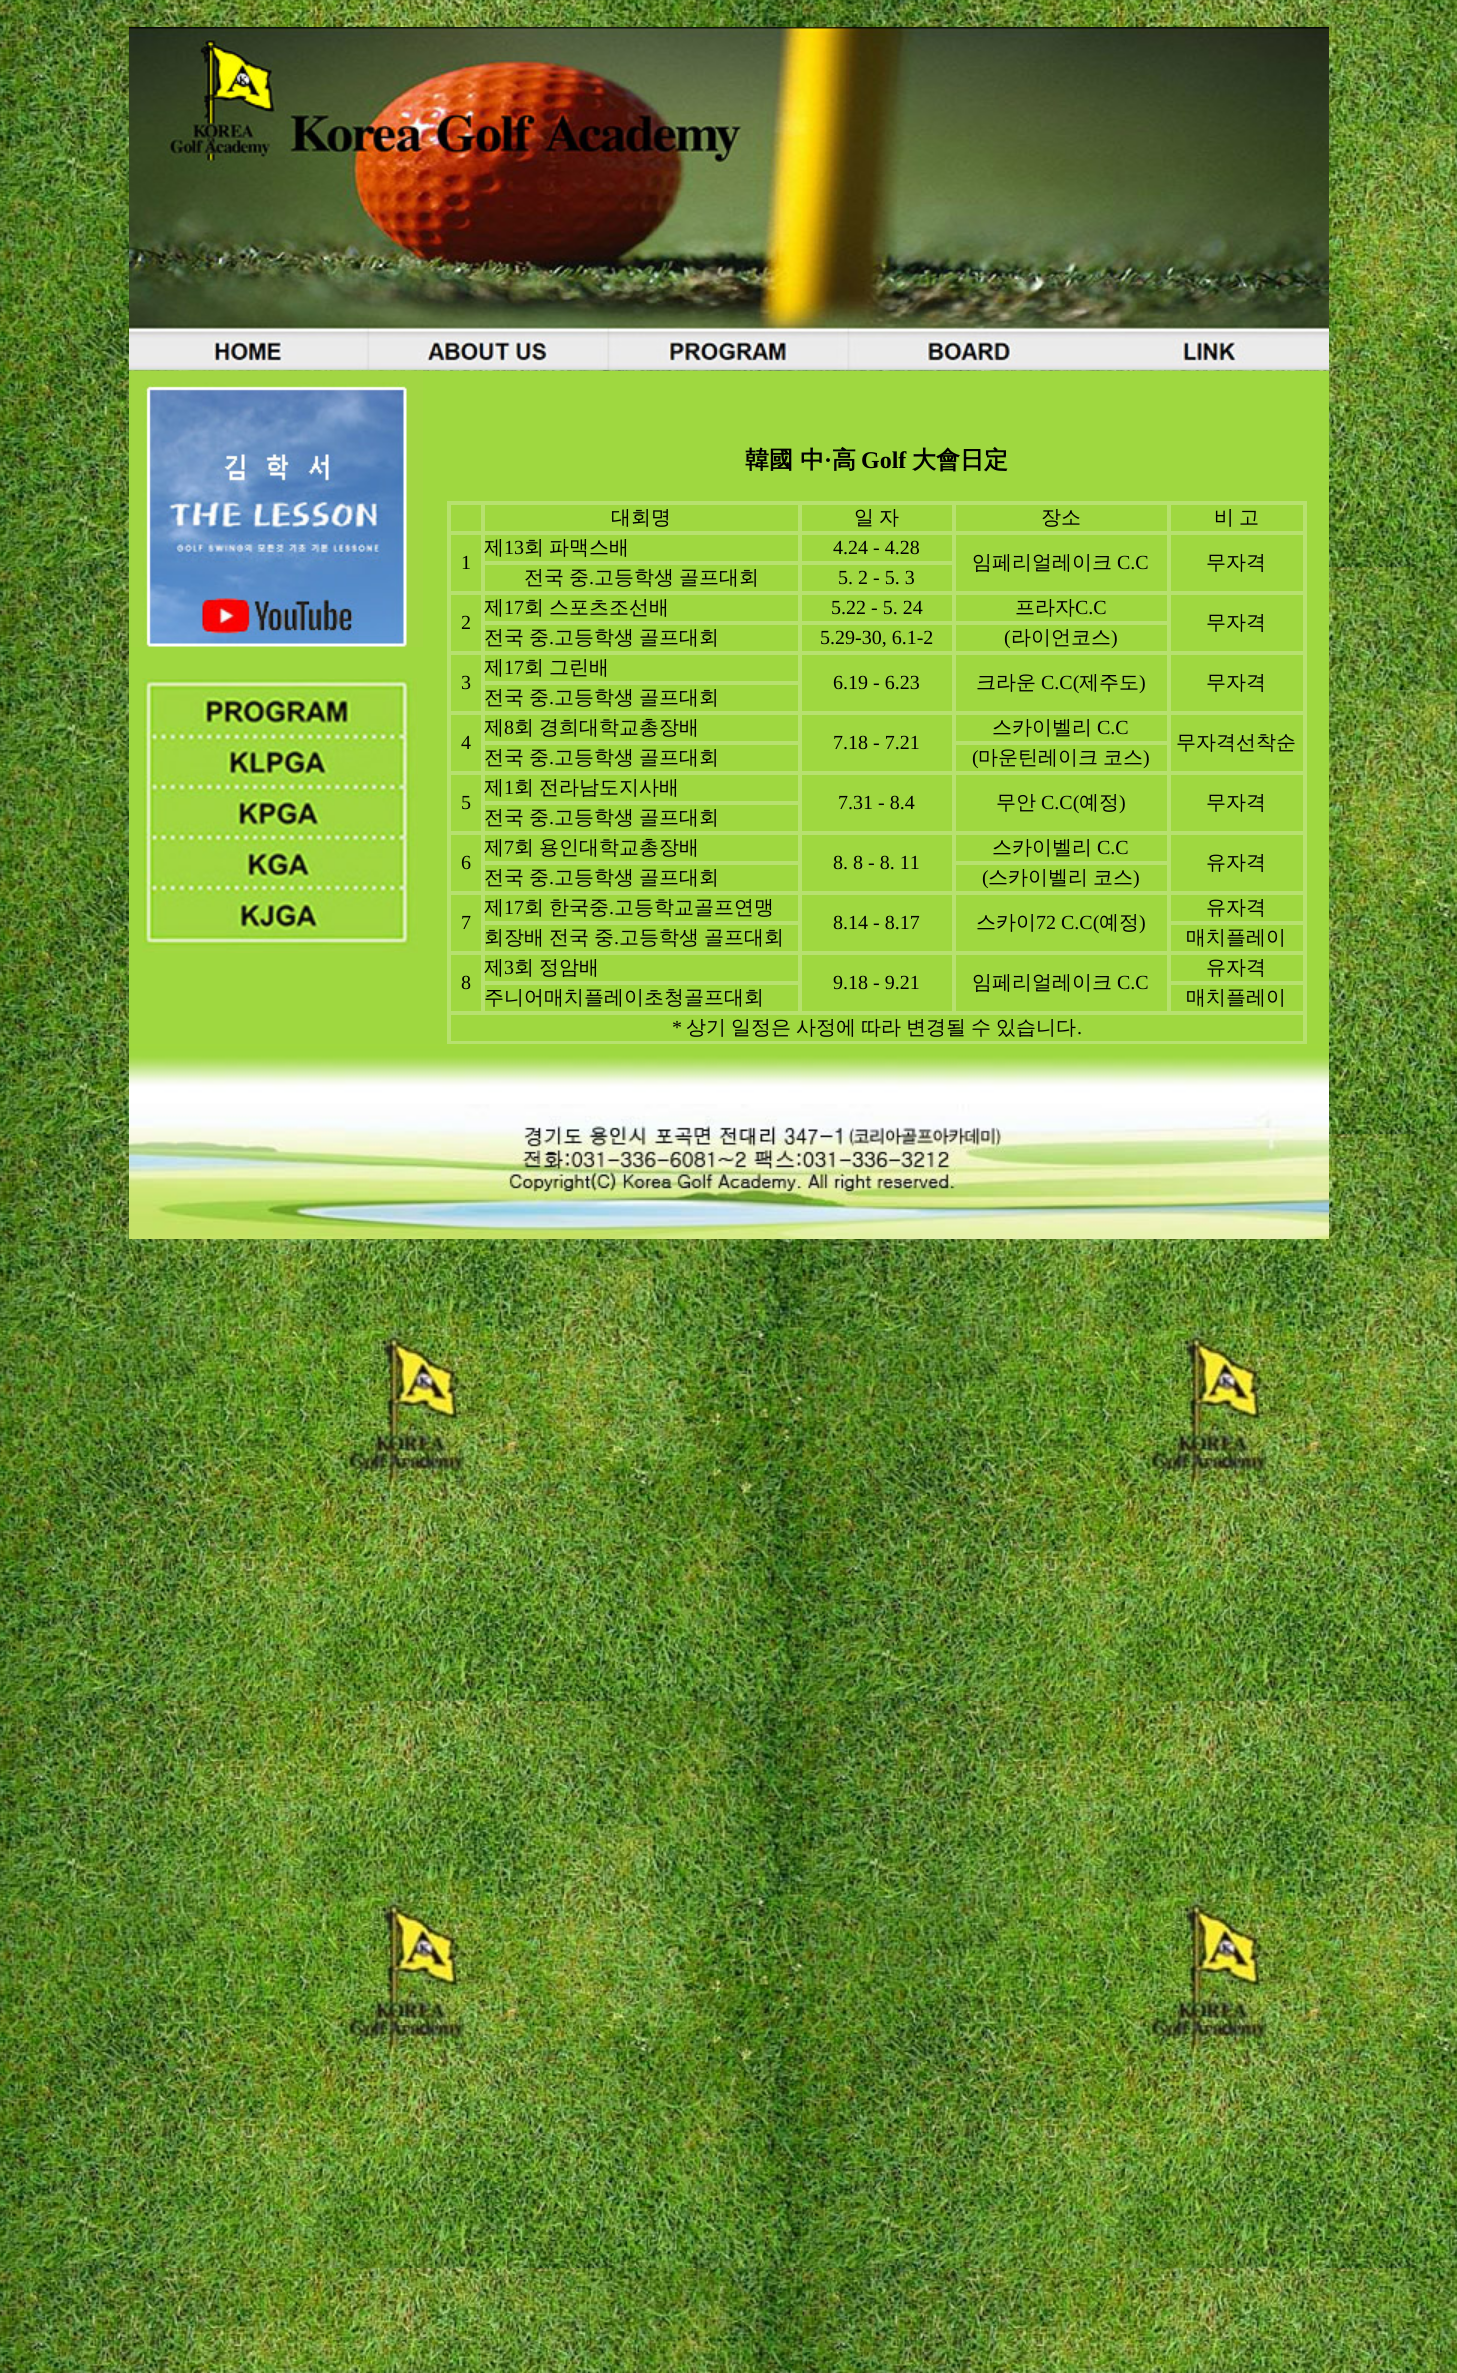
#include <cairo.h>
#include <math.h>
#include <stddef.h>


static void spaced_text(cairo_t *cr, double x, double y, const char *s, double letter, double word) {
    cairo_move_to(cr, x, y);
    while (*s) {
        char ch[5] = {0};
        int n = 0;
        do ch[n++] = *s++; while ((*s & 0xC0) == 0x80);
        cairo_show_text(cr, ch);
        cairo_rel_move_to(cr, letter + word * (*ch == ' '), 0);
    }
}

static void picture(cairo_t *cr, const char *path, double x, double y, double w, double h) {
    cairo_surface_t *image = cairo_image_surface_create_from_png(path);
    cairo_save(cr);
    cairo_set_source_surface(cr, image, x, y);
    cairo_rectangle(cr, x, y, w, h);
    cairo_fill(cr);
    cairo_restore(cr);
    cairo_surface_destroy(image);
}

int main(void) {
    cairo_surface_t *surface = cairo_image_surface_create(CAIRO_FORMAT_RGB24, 1457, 2373);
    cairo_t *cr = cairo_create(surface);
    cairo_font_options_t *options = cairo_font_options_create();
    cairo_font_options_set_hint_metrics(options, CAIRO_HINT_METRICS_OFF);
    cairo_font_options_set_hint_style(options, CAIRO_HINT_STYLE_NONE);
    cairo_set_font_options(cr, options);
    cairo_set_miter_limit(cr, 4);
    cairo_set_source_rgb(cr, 1, 1, 1);
    cairo_paint(cr);
    picture(cr, "img1.png", 0, 0, 1457, 2373);
    picture(cr, "img2.png", 129, 27, 1200, 344);
    cairo_set_source_rgb(cr, 0.624, 0.847, 0.251);
    cairo_rectangle(cr, 129, 371, 1200, 673);
    cairo_fill(cr);
    picture(cr, "img3.png", 130, 370, 293, 277);
    picture(cr, "img4.png", 142, 678, 276, 275);
    cairo_select_font_face(cr, "WenQuanYi Zen Hei", CAIRO_FONT_SLANT_NORMAL, CAIRO_FONT_WEIGHT_BOLD);
    cairo_set_font_size(cr, 24);
    cairo_set_source_rgb(cr, 0, 0, 0);
    cairo_move_to(cr, 745, 468);
    cairo_show_text(cr, "韓國 中");
    cairo_select_font_face(cr, "Liberation Serif", CAIRO_FONT_SLANT_NORMAL, CAIRO_FONT_WEIGHT_BOLD);
    cairo_move_to(cr, 824, 468);
    cairo_show_text(cr, "·");
    cairo_select_font_face(cr, "WenQuanYi Zen Hei", CAIRO_FONT_SLANT_NORMAL, CAIRO_FONT_WEIGHT_BOLD);
    cairo_move_to(cr, 832, 468);
    cairo_show_text(cr, "高");
    cairo_select_font_face(cr, "Liberation Serif", CAIRO_FONT_SLANT_NORMAL, CAIRO_FONT_WEIGHT_BOLD);
    cairo_move_to(cr, 861, 468);
    cairo_show_text(cr, "Golf");
    cairo_select_font_face(cr, "WenQuanYi Zen Hei", CAIRO_FONT_SLANT_NORMAL, CAIRO_FONT_WEIGHT_BOLD);
    cairo_move_to(cr, 912, 468);
    cairo_show_text(cr, "大會日定");
    cairo_rectangle(cr, 448, 502, 858, 541);
    cairo_set_source_rgb(cr, 0.718, 0.882, 0.435);
    cairo_stroke(cr);
    cairo_rectangle(cr, 450, 504, 32, 28);
    cairo_stroke(cr);
    cairo_rectangle(cr, 484, 504, 315, 28);
    cairo_stroke(cr);
    cairo_select_font_face(cr, "WenQuanYi Zen Hei Medium", CAIRO_FONT_SLANT_NORMAL, CAIRO_FONT_WEIGHT_NORMAL);
    cairo_set_font_size(cr, 20);
    cairo_set_source_rgb(cr, 0, 0, 0);
    cairo_move_to(cr, 611, 524);
    cairo_show_text(cr, "대회명");
    cairo_rectangle(cr, 801, 504, 152, 28);
    cairo_set_source_rgb(cr, 0.718, 0.882, 0.435);
    cairo_stroke(cr);
    cairo_set_source_rgb(cr, 0, 0, 0);
    spaced_text(cr, 854, 524, "일 자", 0, -1);
    cairo_rectangle(cr, 955, 504, 213, 28);
    cairo_set_source_rgb(cr, 0.718, 0.882, 0.435);
    cairo_stroke(cr);
    cairo_set_source_rgb(cr, 0, 0, 0);
    cairo_move_to(cr, 1041, 524);
    cairo_show_text(cr, "장소");
    cairo_rectangle(cr, 1170, 504, 134, 28);
    cairo_set_source_rgb(cr, 0.718, 0.882, 0.435);
    cairo_stroke(cr);
    cairo_set_source_rgb(cr, 0, 0, 0);
    spaced_text(cr, 1214, 524, "비 고", 0, -1);
    cairo_rectangle(cr, 484, 534, 315, 28);
    cairo_set_source_rgb(cr, 0.718, 0.882, 0.435);
    cairo_stroke(cr);
    cairo_set_source_rgb(cr, 0, 0, 0);
    cairo_move_to(cr, 484, 554);
    cairo_show_text(cr, "제");
    cairo_select_font_face(cr, "Liberation Serif", CAIRO_FONT_SLANT_NORMAL, CAIRO_FONT_WEIGHT_NORMAL);
    cairo_move_to(cr, 504, 554);
    cairo_show_text(cr, "13");
    cairo_select_font_face(cr, "WenQuanYi Zen Hei Medium", CAIRO_FONT_SLANT_NORMAL, CAIRO_FONT_WEIGHT_NORMAL);
    spaced_text(cr, 524, 554, "회 파맥스배", 0, -1);
    cairo_rectangle(cr, 801, 534, 152, 28);
    cairo_set_source_rgb(cr, 0.718, 0.882, 0.435);
    cairo_stroke(cr);
    cairo_select_font_face(cr, "Liberation Serif", CAIRO_FONT_SLANT_NORMAL, CAIRO_FONT_WEIGHT_NORMAL);
    cairo_set_source_rgb(cr, 0, 0, 0);
    cairo_move_to(cr, 833, 554);
    cairo_show_text(cr, "4.24 - 4.28");
    cairo_rectangle(cr, 450, 534, 32, 58);
    cairo_set_source_rgb(cr, 0.718, 0.882, 0.435);
    cairo_stroke(cr);
    cairo_set_source_rgb(cr, 0, 0, 0);
    cairo_move_to(cr, 461, 569);
    cairo_show_text(cr, "1");
    cairo_rectangle(cr, 955, 534, 213, 58);
    cairo_set_source_rgb(cr, 0.718, 0.882, 0.435);
    cairo_stroke(cr);
    cairo_select_font_face(cr, "WenQuanYi Zen Hei Medium", CAIRO_FONT_SLANT_NORMAL, CAIRO_FONT_WEIGHT_NORMAL);
    cairo_set_source_rgb(cr, 0, 0, 0);
    cairo_move_to(cr, 972, 569);
    cairo_show_text(cr, "임페리얼레이크");
    cairo_select_font_face(cr, "Liberation Serif", CAIRO_FONT_SLANT_NORMAL, CAIRO_FONT_WEIGHT_NORMAL);
    cairo_move_to(cr, 1117, 569);
    cairo_show_text(cr, "C.C");
    cairo_rectangle(cr, 1170, 534, 134, 58);
    cairo_set_source_rgb(cr, 0.718, 0.882, 0.435);
    cairo_stroke(cr);
    cairo_select_font_face(cr, "WenQuanYi Zen Hei Medium", CAIRO_FONT_SLANT_NORMAL, CAIRO_FONT_WEIGHT_NORMAL);
    cairo_set_source_rgb(cr, 0, 0, 0);
    cairo_move_to(cr, 1206, 569);
    cairo_show_text(cr, "무자격");
    cairo_rectangle(cr, 484, 564, 315, 28);
    cairo_set_source_rgb(cr, 0.718, 0.882, 0.435);
    cairo_stroke(cr);
    cairo_set_source_rgb(cr, 0, 0, 0);
    spaced_text(cr, 524, 584, "전국 중", 0, -1);
    cairo_select_font_face(cr, "Liberation Serif", CAIRO_FONT_SLANT_NORMAL, CAIRO_FONT_WEIGHT_NORMAL);
    cairo_move_to(cr, 589, 584);
    cairo_show_text(cr, ".");
    cairo_select_font_face(cr, "WenQuanYi Zen Hei Medium", CAIRO_FONT_SLANT_NORMAL, CAIRO_FONT_WEIGHT_NORMAL);
    spaced_text(cr, 594, 584, "고등학생 골프대회", 0, -1);
    cairo_rectangle(cr, 801, 564, 152, 28);
    cairo_set_source_rgb(cr, 0.718, 0.882, 0.435);
    cairo_stroke(cr);
    cairo_select_font_face(cr, "Liberation Serif", CAIRO_FONT_SLANT_NORMAL, CAIRO_FONT_WEIGHT_NORMAL);
    cairo_set_source_rgb(cr, 0, 0, 0);
    cairo_move_to(cr, 838, 584);
    cairo_show_text(cr, "5. 2 - 5. 3");
    cairo_rectangle(cr, 484, 594, 315, 28);
    cairo_set_source_rgb(cr, 0.718, 0.882, 0.435);
    cairo_stroke(cr);
    cairo_select_font_face(cr, "WenQuanYi Zen Hei Medium", CAIRO_FONT_SLANT_NORMAL, CAIRO_FONT_WEIGHT_NORMAL);
    cairo_set_source_rgb(cr, 0, 0, 0);
    cairo_move_to(cr, 484, 614);
    cairo_show_text(cr, "제");
    cairo_select_font_face(cr, "Liberation Serif", CAIRO_FONT_SLANT_NORMAL, CAIRO_FONT_WEIGHT_NORMAL);
    cairo_move_to(cr, 504, 614);
    cairo_show_text(cr, "17");
    cairo_select_font_face(cr, "WenQuanYi Zen Hei Medium", CAIRO_FONT_SLANT_NORMAL, CAIRO_FONT_WEIGHT_NORMAL);
    spaced_text(cr, 524, 614, "회 스포츠조선배", 0, -1);
    cairo_rectangle(cr, 801, 594, 152, 28);
    cairo_set_source_rgb(cr, 0.718, 0.882, 0.435);
    cairo_stroke(cr);
    cairo_select_font_face(cr, "Liberation Serif", CAIRO_FONT_SLANT_NORMAL, CAIRO_FONT_WEIGHT_NORMAL);
    cairo_set_source_rgb(cr, 0, 0, 0);
    cairo_move_to(cr, 831, 614);
    cairo_show_text(cr, "5.22 - 5. 24");
    cairo_rectangle(cr, 955, 594, 213, 28);
    cairo_set_source_rgb(cr, 0.718, 0.882, 0.435);
    cairo_stroke(cr);
    cairo_select_font_face(cr, "WenQuanYi Zen Hei Medium", CAIRO_FONT_SLANT_NORMAL, CAIRO_FONT_WEIGHT_NORMAL);
    cairo_set_source_rgb(cr, 0, 0, 0);
    cairo_move_to(cr, 1015, 614);
    cairo_show_text(cr, "프라자");
    cairo_select_font_face(cr, "Liberation Serif", CAIRO_FONT_SLANT_NORMAL, CAIRO_FONT_WEIGHT_NORMAL);
    cairo_move_to(cr, 1075, 614);
    cairo_show_text(cr, "C.C");
    cairo_rectangle(cr, 450, 594, 32, 58);
    cairo_set_source_rgb(cr, 0.718, 0.882, 0.435);
    cairo_stroke(cr);
    cairo_set_source_rgb(cr, 0, 0, 0);
    cairo_move_to(cr, 461, 629);
    cairo_show_text(cr, "2");
    cairo_rectangle(cr, 1170, 594, 134, 58);
    cairo_set_source_rgb(cr, 0.718, 0.882, 0.435);
    cairo_stroke(cr);
    cairo_select_font_face(cr, "WenQuanYi Zen Hei Medium", CAIRO_FONT_SLANT_NORMAL, CAIRO_FONT_WEIGHT_NORMAL);
    cairo_set_source_rgb(cr, 0, 0, 0);
    cairo_move_to(cr, 1206, 629);
    cairo_show_text(cr, "무자격");
    cairo_rectangle(cr, 484, 624, 315, 28);
    cairo_set_source_rgb(cr, 0.718, 0.882, 0.435);
    cairo_stroke(cr);
    cairo_set_source_rgb(cr, 0, 0, 0);
    spaced_text(cr, 484, 644, "전국 중", 0, -1);
    cairo_select_font_face(cr, "Liberation Serif", CAIRO_FONT_SLANT_NORMAL, CAIRO_FONT_WEIGHT_NORMAL);
    cairo_move_to(cr, 549, 644);
    cairo_show_text(cr, ".");
    cairo_select_font_face(cr, "WenQuanYi Zen Hei Medium", CAIRO_FONT_SLANT_NORMAL, CAIRO_FONT_WEIGHT_NORMAL);
    spaced_text(cr, 554, 644, "고등학생 골프대회", 0, -1);
    cairo_rectangle(cr, 801, 624, 152, 28);
    cairo_set_source_rgb(cr, 0.718, 0.882, 0.435);
    cairo_stroke(cr);
    cairo_select_font_face(cr, "Liberation Serif", CAIRO_FONT_SLANT_NORMAL, CAIRO_FONT_WEIGHT_NORMAL);
    cairo_set_source_rgb(cr, 0, 0, 0);
    cairo_move_to(cr, 820, 644);
    cairo_show_text(cr, "5.29-30, 6.1-2");
    cairo_rectangle(cr, 955, 624, 213, 28);
    cairo_set_source_rgb(cr, 0.718, 0.882, 0.435);
    cairo_stroke(cr);
    cairo_set_source_rgb(cr, 0, 0, 0);
    cairo_move_to(cr, 1004, 644);
    cairo_show_text(cr, "(");
    cairo_select_font_face(cr, "WenQuanYi Zen Hei Medium", CAIRO_FONT_SLANT_NORMAL, CAIRO_FONT_WEIGHT_NORMAL);
    cairo_move_to(cr, 1011, 644);
    cairo_show_text(cr, "라이언코스");
    cairo_select_font_face(cr, "Liberation Serif", CAIRO_FONT_SLANT_NORMAL, CAIRO_FONT_WEIGHT_NORMAL);
    cairo_move_to(cr, 1111, 644);
    cairo_show_text(cr, ")");
    cairo_rectangle(cr, 484, 654, 315, 28);
    cairo_set_source_rgb(cr, 0.718, 0.882, 0.435);
    cairo_stroke(cr);
    cairo_select_font_face(cr, "WenQuanYi Zen Hei Medium", CAIRO_FONT_SLANT_NORMAL, CAIRO_FONT_WEIGHT_NORMAL);
    cairo_set_source_rgb(cr, 0, 0, 0);
    cairo_move_to(cr, 484, 674);
    cairo_show_text(cr, "제");
    cairo_select_font_face(cr, "Liberation Serif", CAIRO_FONT_SLANT_NORMAL, CAIRO_FONT_WEIGHT_NORMAL);
    cairo_move_to(cr, 504, 674);
    cairo_show_text(cr, "17");
    cairo_select_font_face(cr, "WenQuanYi Zen Hei Medium", CAIRO_FONT_SLANT_NORMAL, CAIRO_FONT_WEIGHT_NORMAL);
    spaced_text(cr, 524, 674, "회 그린배", 0, -1);
    cairo_rectangle(cr, 450, 654, 32, 58);
    cairo_set_source_rgb(cr, 0.718, 0.882, 0.435);
    cairo_stroke(cr);
    cairo_select_font_face(cr, "Liberation Serif", CAIRO_FONT_SLANT_NORMAL, CAIRO_FONT_WEIGHT_NORMAL);
    cairo_set_source_rgb(cr, 0, 0, 0);
    cairo_move_to(cr, 461, 689);
    cairo_show_text(cr, "3");
    cairo_rectangle(cr, 801, 654, 152, 58);
    cairo_set_source_rgb(cr, 0.718, 0.882, 0.435);
    cairo_stroke(cr);
    cairo_set_source_rgb(cr, 0, 0, 0);
    cairo_move_to(cr, 833, 689);
    cairo_show_text(cr, "6.19 - 6.23");
    cairo_rectangle(cr, 955, 654, 213, 58);
    cairo_set_source_rgb(cr, 0.718, 0.882, 0.435);
    cairo_stroke(cr);
    cairo_select_font_face(cr, "WenQuanYi Zen Hei Medium", CAIRO_FONT_SLANT_NORMAL, CAIRO_FONT_WEIGHT_NORMAL);
    cairo_set_source_rgb(cr, 0, 0, 0);
    cairo_move_to(cr, 976, 689);
    cairo_show_text(cr, "크라운");
    cairo_select_font_face(cr, "Liberation Serif", CAIRO_FONT_SLANT_NORMAL, CAIRO_FONT_WEIGHT_NORMAL);
    cairo_move_to(cr, 1041, 689);
    cairo_show_text(cr, "C.C(");
    cairo_select_font_face(cr, "WenQuanYi Zen Hei Medium", CAIRO_FONT_SLANT_NORMAL, CAIRO_FONT_WEIGHT_NORMAL);
    cairo_move_to(cr, 1079, 689);
    cairo_show_text(cr, "제주도");
    cairo_select_font_face(cr, "Liberation Serif", CAIRO_FONT_SLANT_NORMAL, CAIRO_FONT_WEIGHT_NORMAL);
    cairo_move_to(cr, 1139, 689);
    cairo_show_text(cr, ")");
    cairo_rectangle(cr, 1170, 654, 134, 58);
    cairo_set_source_rgb(cr, 0.718, 0.882, 0.435);
    cairo_stroke(cr);
    cairo_select_font_face(cr, "WenQuanYi Zen Hei Medium", CAIRO_FONT_SLANT_NORMAL, CAIRO_FONT_WEIGHT_NORMAL);
    cairo_set_source_rgb(cr, 0, 0, 0);
    cairo_move_to(cr, 1206, 689);
    cairo_show_text(cr, "무자격");
    cairo_rectangle(cr, 484, 684, 315, 28);
    cairo_set_source_rgb(cr, 0.718, 0.882, 0.435);
    cairo_stroke(cr);
    cairo_set_source_rgb(cr, 0, 0, 0);
    spaced_text(cr, 484, 704, "전국 중", 0, -1);
    cairo_select_font_face(cr, "Liberation Serif", CAIRO_FONT_SLANT_NORMAL, CAIRO_FONT_WEIGHT_NORMAL);
    cairo_move_to(cr, 549, 704);
    cairo_show_text(cr, ".");
    cairo_select_font_face(cr, "WenQuanYi Zen Hei Medium", CAIRO_FONT_SLANT_NORMAL, CAIRO_FONT_WEIGHT_NORMAL);
    spaced_text(cr, 554, 704, "고등학생 골프대회", 0, -1);
    cairo_rectangle(cr, 484, 714, 315, 28);
    cairo_set_source_rgb(cr, 0.718, 0.882, 0.435);
    cairo_stroke(cr);
    cairo_set_source_rgb(cr, 0, 0, 0);
    cairo_move_to(cr, 484, 734);
    cairo_show_text(cr, "제");
    cairo_select_font_face(cr, "Liberation Serif", CAIRO_FONT_SLANT_NORMAL, CAIRO_FONT_WEIGHT_NORMAL);
    cairo_move_to(cr, 504, 734);
    cairo_show_text(cr, "8");
    cairo_select_font_face(cr, "WenQuanYi Zen Hei Medium", CAIRO_FONT_SLANT_NORMAL, CAIRO_FONT_WEIGHT_NORMAL);
    spaced_text(cr, 514, 734, "회 경희대학교총장배", 0, -1);
    cairo_rectangle(cr, 955, 714, 213, 28);
    cairo_set_source_rgb(cr, 0.718, 0.882, 0.435);
    cairo_stroke(cr);
    cairo_set_source_rgb(cr, 0, 0, 0);
    cairo_move_to(cr, 992, 734);
    cairo_show_text(cr, "스카이벨리");
    cairo_select_font_face(cr, "Liberation Serif", CAIRO_FONT_SLANT_NORMAL, CAIRO_FONT_WEIGHT_NORMAL);
    cairo_move_to(cr, 1097, 734);
    cairo_show_text(cr, "C.C");
    cairo_rectangle(cr, 450, 714, 32, 58);
    cairo_set_source_rgb(cr, 0.718, 0.882, 0.435);
    cairo_stroke(cr);
    cairo_set_source_rgb(cr, 0, 0, 0);
    cairo_move_to(cr, 461, 749);
    cairo_show_text(cr, "4");
    cairo_rectangle(cr, 801, 714, 152, 58);
    cairo_set_source_rgb(cr, 0.718, 0.882, 0.435);
    cairo_stroke(cr);
    cairo_set_source_rgb(cr, 0, 0, 0);
    cairo_move_to(cr, 833, 749);
    cairo_show_text(cr, "7.18 - 7.21");
    cairo_rectangle(cr, 1170, 714, 134, 58);
    cairo_set_source_rgb(cr, 0.718, 0.882, 0.435);
    cairo_stroke(cr);
    cairo_select_font_face(cr, "WenQuanYi Zen Hei Medium", CAIRO_FONT_SLANT_NORMAL, CAIRO_FONT_WEIGHT_NORMAL);
    cairo_set_source_rgb(cr, 0, 0, 0);
    cairo_move_to(cr, 1176, 749);
    cairo_show_text(cr, "무자격선착순");
    cairo_rectangle(cr, 484, 744, 315, 28);
    cairo_set_source_rgb(cr, 0.718, 0.882, 0.435);
    cairo_stroke(cr);
    cairo_set_source_rgb(cr, 0, 0, 0);
    spaced_text(cr, 484, 764, "전국 중", 0, -1);
    cairo_select_font_face(cr, "Liberation Serif", CAIRO_FONT_SLANT_NORMAL, CAIRO_FONT_WEIGHT_NORMAL);
    cairo_move_to(cr, 549, 764);
    cairo_show_text(cr, ".");
    cairo_select_font_face(cr, "WenQuanYi Zen Hei Medium", CAIRO_FONT_SLANT_NORMAL, CAIRO_FONT_WEIGHT_NORMAL);
    spaced_text(cr, 554, 764, "고등학생 골프대회", 0, -1);
    cairo_rectangle(cr, 955, 744, 213, 28);
    cairo_set_source_rgb(cr, 0.718, 0.882, 0.435);
    cairo_stroke(cr);
    cairo_select_font_face(cr, "Liberation Serif", CAIRO_FONT_SLANT_NORMAL, CAIRO_FONT_WEIGHT_NORMAL);
    cairo_set_source_rgb(cr, 0, 0, 0);
    cairo_move_to(cr, 972, 764);
    cairo_show_text(cr, "(");
    cairo_select_font_face(cr, "WenQuanYi Zen Hei Medium", CAIRO_FONT_SLANT_NORMAL, CAIRO_FONT_WEIGHT_NORMAL);
    spaced_text(cr, 978, 764, "마운틴레이크 코스", 0, -1);
    cairo_select_font_face(cr, "Liberation Serif", CAIRO_FONT_SLANT_NORMAL, CAIRO_FONT_WEIGHT_NORMAL);
    cairo_move_to(cr, 1143, 764);
    cairo_show_text(cr, ")");
    cairo_rectangle(cr, 484, 774, 315, 28);
    cairo_set_source_rgb(cr, 0.718, 0.882, 0.435);
    cairo_stroke(cr);
    cairo_select_font_face(cr, "WenQuanYi Zen Hei Medium", CAIRO_FONT_SLANT_NORMAL, CAIRO_FONT_WEIGHT_NORMAL);
    cairo_set_source_rgb(cr, 0, 0, 0);
    cairo_move_to(cr, 484, 794);
    cairo_show_text(cr, "제");
    cairo_select_font_face(cr, "Liberation Serif", CAIRO_FONT_SLANT_NORMAL, CAIRO_FONT_WEIGHT_NORMAL);
    cairo_move_to(cr, 504, 794);
    cairo_show_text(cr, "1");
    cairo_select_font_face(cr, "WenQuanYi Zen Hei Medium", CAIRO_FONT_SLANT_NORMAL, CAIRO_FONT_WEIGHT_NORMAL);
    spaced_text(cr, 514, 794, "회 전라남도지사배", 0, -1);
    cairo_rectangle(cr, 450, 774, 32, 58);
    cairo_set_source_rgb(cr, 0.718, 0.882, 0.435);
    cairo_stroke(cr);
    cairo_select_font_face(cr, "Liberation Serif", CAIRO_FONT_SLANT_NORMAL, CAIRO_FONT_WEIGHT_NORMAL);
    cairo_set_source_rgb(cr, 0, 0, 0);
    cairo_move_to(cr, 461, 809);
    cairo_show_text(cr, "5");
    cairo_rectangle(cr, 801, 774, 152, 58);
    cairo_set_source_rgb(cr, 0.718, 0.882, 0.435);
    cairo_stroke(cr);
    cairo_set_source_rgb(cr, 0, 0, 0);
    cairo_move_to(cr, 838, 809);
    cairo_show_text(cr, "7.31 - 8.4");
    cairo_rectangle(cr, 955, 774, 213, 58);
    cairo_set_source_rgb(cr, 0.718, 0.882, 0.435);
    cairo_stroke(cr);
    cairo_select_font_face(cr, "WenQuanYi Zen Hei Medium", CAIRO_FONT_SLANT_NORMAL, CAIRO_FONT_WEIGHT_NORMAL);
    cairo_set_source_rgb(cr, 0, 0, 0);
    cairo_move_to(cr, 996, 809);
    cairo_show_text(cr, "무안");
    cairo_select_font_face(cr, "Liberation Serif", CAIRO_FONT_SLANT_NORMAL, CAIRO_FONT_WEIGHT_NORMAL);
    cairo_move_to(cr, 1041, 809);
    cairo_show_text(cr, "C.C(");
    cairo_select_font_face(cr, "WenQuanYi Zen Hei Medium", CAIRO_FONT_SLANT_NORMAL, CAIRO_FONT_WEIGHT_NORMAL);
    cairo_move_to(cr, 1079, 809);
    cairo_show_text(cr, "예정");
    cairo_select_font_face(cr, "Liberation Serif", CAIRO_FONT_SLANT_NORMAL, CAIRO_FONT_WEIGHT_NORMAL);
    cairo_move_to(cr, 1119, 809);
    cairo_show_text(cr, ")");
    cairo_rectangle(cr, 1170, 774, 134, 58);
    cairo_set_source_rgb(cr, 0.718, 0.882, 0.435);
    cairo_stroke(cr);
    cairo_select_font_face(cr, "WenQuanYi Zen Hei Medium", CAIRO_FONT_SLANT_NORMAL, CAIRO_FONT_WEIGHT_NORMAL);
    cairo_set_source_rgb(cr, 0, 0, 0);
    cairo_move_to(cr, 1206, 809);
    cairo_show_text(cr, "무자격");
    cairo_rectangle(cr, 484, 804, 315, 28);
    cairo_set_source_rgb(cr, 0.718, 0.882, 0.435);
    cairo_stroke(cr);
    cairo_set_source_rgb(cr, 0, 0, 0);
    spaced_text(cr, 484, 824, "전국 중", 0, -1);
    cairo_select_font_face(cr, "Liberation Serif", CAIRO_FONT_SLANT_NORMAL, CAIRO_FONT_WEIGHT_NORMAL);
    cairo_move_to(cr, 549, 824);
    cairo_show_text(cr, ".");
    cairo_select_font_face(cr, "WenQuanYi Zen Hei Medium", CAIRO_FONT_SLANT_NORMAL, CAIRO_FONT_WEIGHT_NORMAL);
    spaced_text(cr, 554, 824, "고등학생 골프대회", 0, -1);
    cairo_rectangle(cr, 484, 834, 315, 28);
    cairo_set_source_rgb(cr, 0.718, 0.882, 0.435);
    cairo_stroke(cr);
    cairo_set_source_rgb(cr, 0, 0, 0);
    cairo_move_to(cr, 484, 854);
    cairo_show_text(cr, "제");
    cairo_select_font_face(cr, "Liberation Serif", CAIRO_FONT_SLANT_NORMAL, CAIRO_FONT_WEIGHT_NORMAL);
    cairo_move_to(cr, 504, 854);
    cairo_show_text(cr, "7");
    cairo_select_font_face(cr, "WenQuanYi Zen Hei Medium", CAIRO_FONT_SLANT_NORMAL, CAIRO_FONT_WEIGHT_NORMAL);
    spaced_text(cr, 514, 854, "회 용인대학교총장배", 0, -1);
    cairo_rectangle(cr, 955, 834, 213, 28);
    cairo_set_source_rgb(cr, 0.718, 0.882, 0.435);
    cairo_stroke(cr);
    cairo_set_source_rgb(cr, 0, 0, 0);
    cairo_move_to(cr, 992, 854);
    cairo_show_text(cr, "스카이벨리");
    cairo_select_font_face(cr, "Liberation Serif", CAIRO_FONT_SLANT_NORMAL, CAIRO_FONT_WEIGHT_NORMAL);
    cairo_move_to(cr, 1097, 854);
    cairo_show_text(cr, "C.C");
    cairo_rectangle(cr, 450, 834, 32, 58);
    cairo_set_source_rgb(cr, 0.718, 0.882, 0.435);
    cairo_stroke(cr);
    cairo_set_source_rgb(cr, 0, 0, 0);
    cairo_move_to(cr, 461, 869);
    cairo_show_text(cr, "6");
    cairo_rectangle(cr, 801, 834, 152, 58);
    cairo_set_source_rgb(cr, 0.718, 0.882, 0.435);
    cairo_stroke(cr);
    cairo_set_source_rgb(cr, 0, 0, 0);
    cairo_move_to(cr, 833, 869);
    cairo_show_text(cr, "8. 8 - 8. 11");
    cairo_rectangle(cr, 1170, 834, 134, 58);
    cairo_set_source_rgb(cr, 0.718, 0.882, 0.435);
    cairo_stroke(cr);
    cairo_select_font_face(cr, "WenQuanYi Zen Hei Medium", CAIRO_FONT_SLANT_NORMAL, CAIRO_FONT_WEIGHT_NORMAL);
    cairo_set_source_rgb(cr, 0, 0, 0);
    cairo_move_to(cr, 1206, 869);
    cairo_show_text(cr, "유자격");
    cairo_rectangle(cr, 484, 864, 315, 28);
    cairo_set_source_rgb(cr, 0.718, 0.882, 0.435);
    cairo_stroke(cr);
    cairo_set_source_rgb(cr, 0, 0, 0);
    spaced_text(cr, 484, 884, "전국 중", 0, -1);
    cairo_select_font_face(cr, "Liberation Serif", CAIRO_FONT_SLANT_NORMAL, CAIRO_FONT_WEIGHT_NORMAL);
    cairo_move_to(cr, 549, 884);
    cairo_show_text(cr, ".");
    cairo_select_font_face(cr, "WenQuanYi Zen Hei Medium", CAIRO_FONT_SLANT_NORMAL, CAIRO_FONT_WEIGHT_NORMAL);
    spaced_text(cr, 554, 884, "고등학생 골프대회", 0, -1);
    cairo_rectangle(cr, 955, 864, 213, 28);
    cairo_set_source_rgb(cr, 0.718, 0.882, 0.435);
    cairo_stroke(cr);
    cairo_select_font_face(cr, "Liberation Serif", CAIRO_FONT_SLANT_NORMAL, CAIRO_FONT_WEIGHT_NORMAL);
    cairo_set_source_rgb(cr, 0, 0, 0);
    cairo_move_to(cr, 982, 884);
    cairo_show_text(cr, "(");
    cairo_select_font_face(cr, "WenQuanYi Zen Hei Medium", CAIRO_FONT_SLANT_NORMAL, CAIRO_FONT_WEIGHT_NORMAL);
    spaced_text(cr, 988, 884, "스카이벨리 코스", 0, -1);
    cairo_select_font_face(cr, "Liberation Serif", CAIRO_FONT_SLANT_NORMAL, CAIRO_FONT_WEIGHT_NORMAL);
    cairo_move_to(cr, 1133, 884);
    cairo_show_text(cr, ")");
    cairo_rectangle(cr, 484, 894, 315, 28);
    cairo_set_source_rgb(cr, 0.718, 0.882, 0.435);
    cairo_stroke(cr);
    cairo_select_font_face(cr, "WenQuanYi Zen Hei Medium", CAIRO_FONT_SLANT_NORMAL, CAIRO_FONT_WEIGHT_NORMAL);
    cairo_set_source_rgb(cr, 0, 0, 0);
    cairo_move_to(cr, 484, 914);
    cairo_show_text(cr, "제");
    cairo_select_font_face(cr, "Liberation Serif", CAIRO_FONT_SLANT_NORMAL, CAIRO_FONT_WEIGHT_NORMAL);
    cairo_move_to(cr, 504, 914);
    cairo_show_text(cr, "17");
    cairo_select_font_face(cr, "WenQuanYi Zen Hei Medium", CAIRO_FONT_SLANT_NORMAL, CAIRO_FONT_WEIGHT_NORMAL);
    spaced_text(cr, 524, 914, "회 한국중", 0, -1);
    cairo_select_font_face(cr, "Liberation Serif", CAIRO_FONT_SLANT_NORMAL, CAIRO_FONT_WEIGHT_NORMAL);
    cairo_move_to(cr, 609, 914);
    cairo_show_text(cr, ".");
    cairo_select_font_face(cr, "WenQuanYi Zen Hei Medium", CAIRO_FONT_SLANT_NORMAL, CAIRO_FONT_WEIGHT_NORMAL);
    cairo_move_to(cr, 614, 914);
    cairo_show_text(cr, "고등학교골프연맹");
    cairo_rectangle(cr, 1170, 894, 134, 28);
    cairo_set_source_rgb(cr, 0.718, 0.882, 0.435);
    cairo_stroke(cr);
    cairo_set_source_rgb(cr, 0, 0, 0);
    cairo_move_to(cr, 1206, 914);
    cairo_show_text(cr, "유자격");
    cairo_rectangle(cr, 450, 894, 32, 58);
    cairo_set_source_rgb(cr, 0.718, 0.882, 0.435);
    cairo_stroke(cr);
    cairo_select_font_face(cr, "Liberation Serif", CAIRO_FONT_SLANT_NORMAL, CAIRO_FONT_WEIGHT_NORMAL);
    cairo_set_source_rgb(cr, 0, 0, 0);
    cairo_move_to(cr, 461, 929);
    cairo_show_text(cr, "7");
    cairo_rectangle(cr, 801, 894, 152, 58);
    cairo_set_source_rgb(cr, 0.718, 0.882, 0.435);
    cairo_stroke(cr);
    cairo_set_source_rgb(cr, 0, 0, 0);
    cairo_move_to(cr, 833, 929);
    cairo_show_text(cr, "8.14 - 8.17");
    cairo_rectangle(cr, 955, 894, 213, 58);
    cairo_set_source_rgb(cr, 0.718, 0.882, 0.435);
    cairo_stroke(cr);
    cairo_select_font_face(cr, "WenQuanYi Zen Hei Medium", CAIRO_FONT_SLANT_NORMAL, CAIRO_FONT_WEIGHT_NORMAL);
    cairo_set_source_rgb(cr, 0, 0, 0);
    cairo_move_to(cr, 976, 929);
    cairo_show_text(cr, "스카이");
    cairo_select_font_face(cr, "Liberation Serif", CAIRO_FONT_SLANT_NORMAL, CAIRO_FONT_WEIGHT_NORMAL);
    cairo_move_to(cr, 1036, 929);
    cairo_show_text(cr, "72 C.C(");
    cairo_select_font_face(cr, "WenQuanYi Zen Hei Medium", CAIRO_FONT_SLANT_NORMAL, CAIRO_FONT_WEIGHT_NORMAL);
    cairo_move_to(cr, 1099, 929);
    cairo_show_text(cr, "예정");
    cairo_select_font_face(cr, "Liberation Serif", CAIRO_FONT_SLANT_NORMAL, CAIRO_FONT_WEIGHT_NORMAL);
    cairo_move_to(cr, 1139, 929);
    cairo_show_text(cr, ")");
    cairo_rectangle(cr, 484, 924, 315, 28);
    cairo_set_source_rgb(cr, 0.718, 0.882, 0.435);
    cairo_stroke(cr);
    cairo_select_font_face(cr, "WenQuanYi Zen Hei Medium", CAIRO_FONT_SLANT_NORMAL, CAIRO_FONT_WEIGHT_NORMAL);
    cairo_set_source_rgb(cr, 0, 0, 0);
    spaced_text(cr, 484, 944, "회장배 전국 중", 0, -1);
    cairo_select_font_face(cr, "Liberation Serif", CAIRO_FONT_SLANT_NORMAL, CAIRO_FONT_WEIGHT_NORMAL);
    cairo_move_to(cr, 614, 944);
    cairo_show_text(cr, ".");
    cairo_select_font_face(cr, "WenQuanYi Zen Hei Medium", CAIRO_FONT_SLANT_NORMAL, CAIRO_FONT_WEIGHT_NORMAL);
    spaced_text(cr, 619, 944, "고등학생 골프대회", 0, -1);
    cairo_rectangle(cr, 1170, 924, 134, 28);
    cairo_set_source_rgb(cr, 0.718, 0.882, 0.435);
    cairo_stroke(cr);
    cairo_set_source_rgb(cr, 0, 0, 0);
    cairo_move_to(cr, 1186, 944);
    cairo_show_text(cr, "매치플레이");
    cairo_rectangle(cr, 484, 954, 315, 28);
    cairo_set_source_rgb(cr, 0.718, 0.882, 0.435);
    cairo_stroke(cr);
    cairo_set_source_rgb(cr, 0, 0, 0);
    cairo_move_to(cr, 484, 974);
    cairo_show_text(cr, "제");
    cairo_select_font_face(cr, "Liberation Serif", CAIRO_FONT_SLANT_NORMAL, CAIRO_FONT_WEIGHT_NORMAL);
    cairo_move_to(cr, 504, 974);
    cairo_show_text(cr, "3");
    cairo_select_font_face(cr, "WenQuanYi Zen Hei Medium", CAIRO_FONT_SLANT_NORMAL, CAIRO_FONT_WEIGHT_NORMAL);
    spaced_text(cr, 514, 974, "회 정암배", 0, -1);
    cairo_rectangle(cr, 1170, 954, 134, 28);
    cairo_set_source_rgb(cr, 0.718, 0.882, 0.435);
    cairo_stroke(cr);
    cairo_set_source_rgb(cr, 0, 0, 0);
    cairo_move_to(cr, 1206, 974);
    cairo_show_text(cr, "유자격");
    cairo_rectangle(cr, 450, 954, 32, 58);
    cairo_set_source_rgb(cr, 0.718, 0.882, 0.435);
    cairo_stroke(cr);
    cairo_select_font_face(cr, "Liberation Serif", CAIRO_FONT_SLANT_NORMAL, CAIRO_FONT_WEIGHT_NORMAL);
    cairo_set_source_rgb(cr, 0, 0, 0);
    cairo_move_to(cr, 461, 989);
    cairo_show_text(cr, "8");
    cairo_rectangle(cr, 801, 954, 152, 58);
    cairo_set_source_rgb(cr, 0.718, 0.882, 0.435);
    cairo_stroke(cr);
    cairo_set_source_rgb(cr, 0, 0, 0);
    cairo_move_to(cr, 833, 989);
    cairo_show_text(cr, "9.18 - 9.21");
    cairo_rectangle(cr, 955, 954, 213, 58);
    cairo_set_source_rgb(cr, 0.718, 0.882, 0.435);
    cairo_stroke(cr);
    cairo_select_font_face(cr, "WenQuanYi Zen Hei Medium", CAIRO_FONT_SLANT_NORMAL, CAIRO_FONT_WEIGHT_NORMAL);
    cairo_set_source_rgb(cr, 0, 0, 0);
    cairo_move_to(cr, 972, 989);
    cairo_show_text(cr, "임페리얼레이크");
    cairo_select_font_face(cr, "Liberation Serif", CAIRO_FONT_SLANT_NORMAL, CAIRO_FONT_WEIGHT_NORMAL);
    cairo_move_to(cr, 1117, 989);
    cairo_show_text(cr, "C.C");
    cairo_rectangle(cr, 484, 984, 315, 28);
    cairo_set_source_rgb(cr, 0.718, 0.882, 0.435);
    cairo_stroke(cr);
    cairo_select_font_face(cr, "WenQuanYi Zen Hei Medium", CAIRO_FONT_SLANT_NORMAL, CAIRO_FONT_WEIGHT_NORMAL);
    cairo_set_source_rgb(cr, 0, 0, 0);
    cairo_move_to(cr, 484, 1004);
    cairo_show_text(cr, "주니어매치플레이초청골프대회");
    cairo_rectangle(cr, 1170, 984, 134, 28);
    cairo_set_source_rgb(cr, 0.718, 0.882, 0.435);
    cairo_stroke(cr);
    cairo_set_source_rgb(cr, 0, 0, 0);
    cairo_move_to(cr, 1186, 1004);
    cairo_show_text(cr, "매치플레이");
    cairo_rectangle(cr, 450, 1014, 854, 28);
    cairo_set_source_rgb(cr, 0.718, 0.882, 0.435);
    cairo_stroke(cr);
    cairo_select_font_face(cr, "Liberation Serif", CAIRO_FONT_SLANT_NORMAL, CAIRO_FONT_WEIGHT_NORMAL);
    cairo_set_source_rgb(cr, 0, 0, 0);
    cairo_move_to(cr, 672, 1034);
    cairo_show_text(cr, "*");
    cairo_select_font_face(cr, "WenQuanYi Zen Hei Medium", CAIRO_FONT_SLANT_NORMAL, CAIRO_FONT_WEIGHT_NORMAL);
    spaced_text(cr, 686, 1034, "상기 일정은 사정에 따라 변경될 수 있습니다", 0, -1);
    cairo_select_font_face(cr, "Liberation Serif", CAIRO_FONT_SLANT_NORMAL, CAIRO_FONT_WEIGHT_NORMAL);
    cairo_move_to(cr, 1077, 1034);
    cairo_show_text(cr, ".");
    picture(cr, "img5.png", 129, 1044, 1200, 195);
    cairo_surface_write_to_png(surface, "page.png");
    cairo_font_options_destroy(options);
    cairo_destroy(cr);
    cairo_surface_destroy(surface);
    return 0;
}
